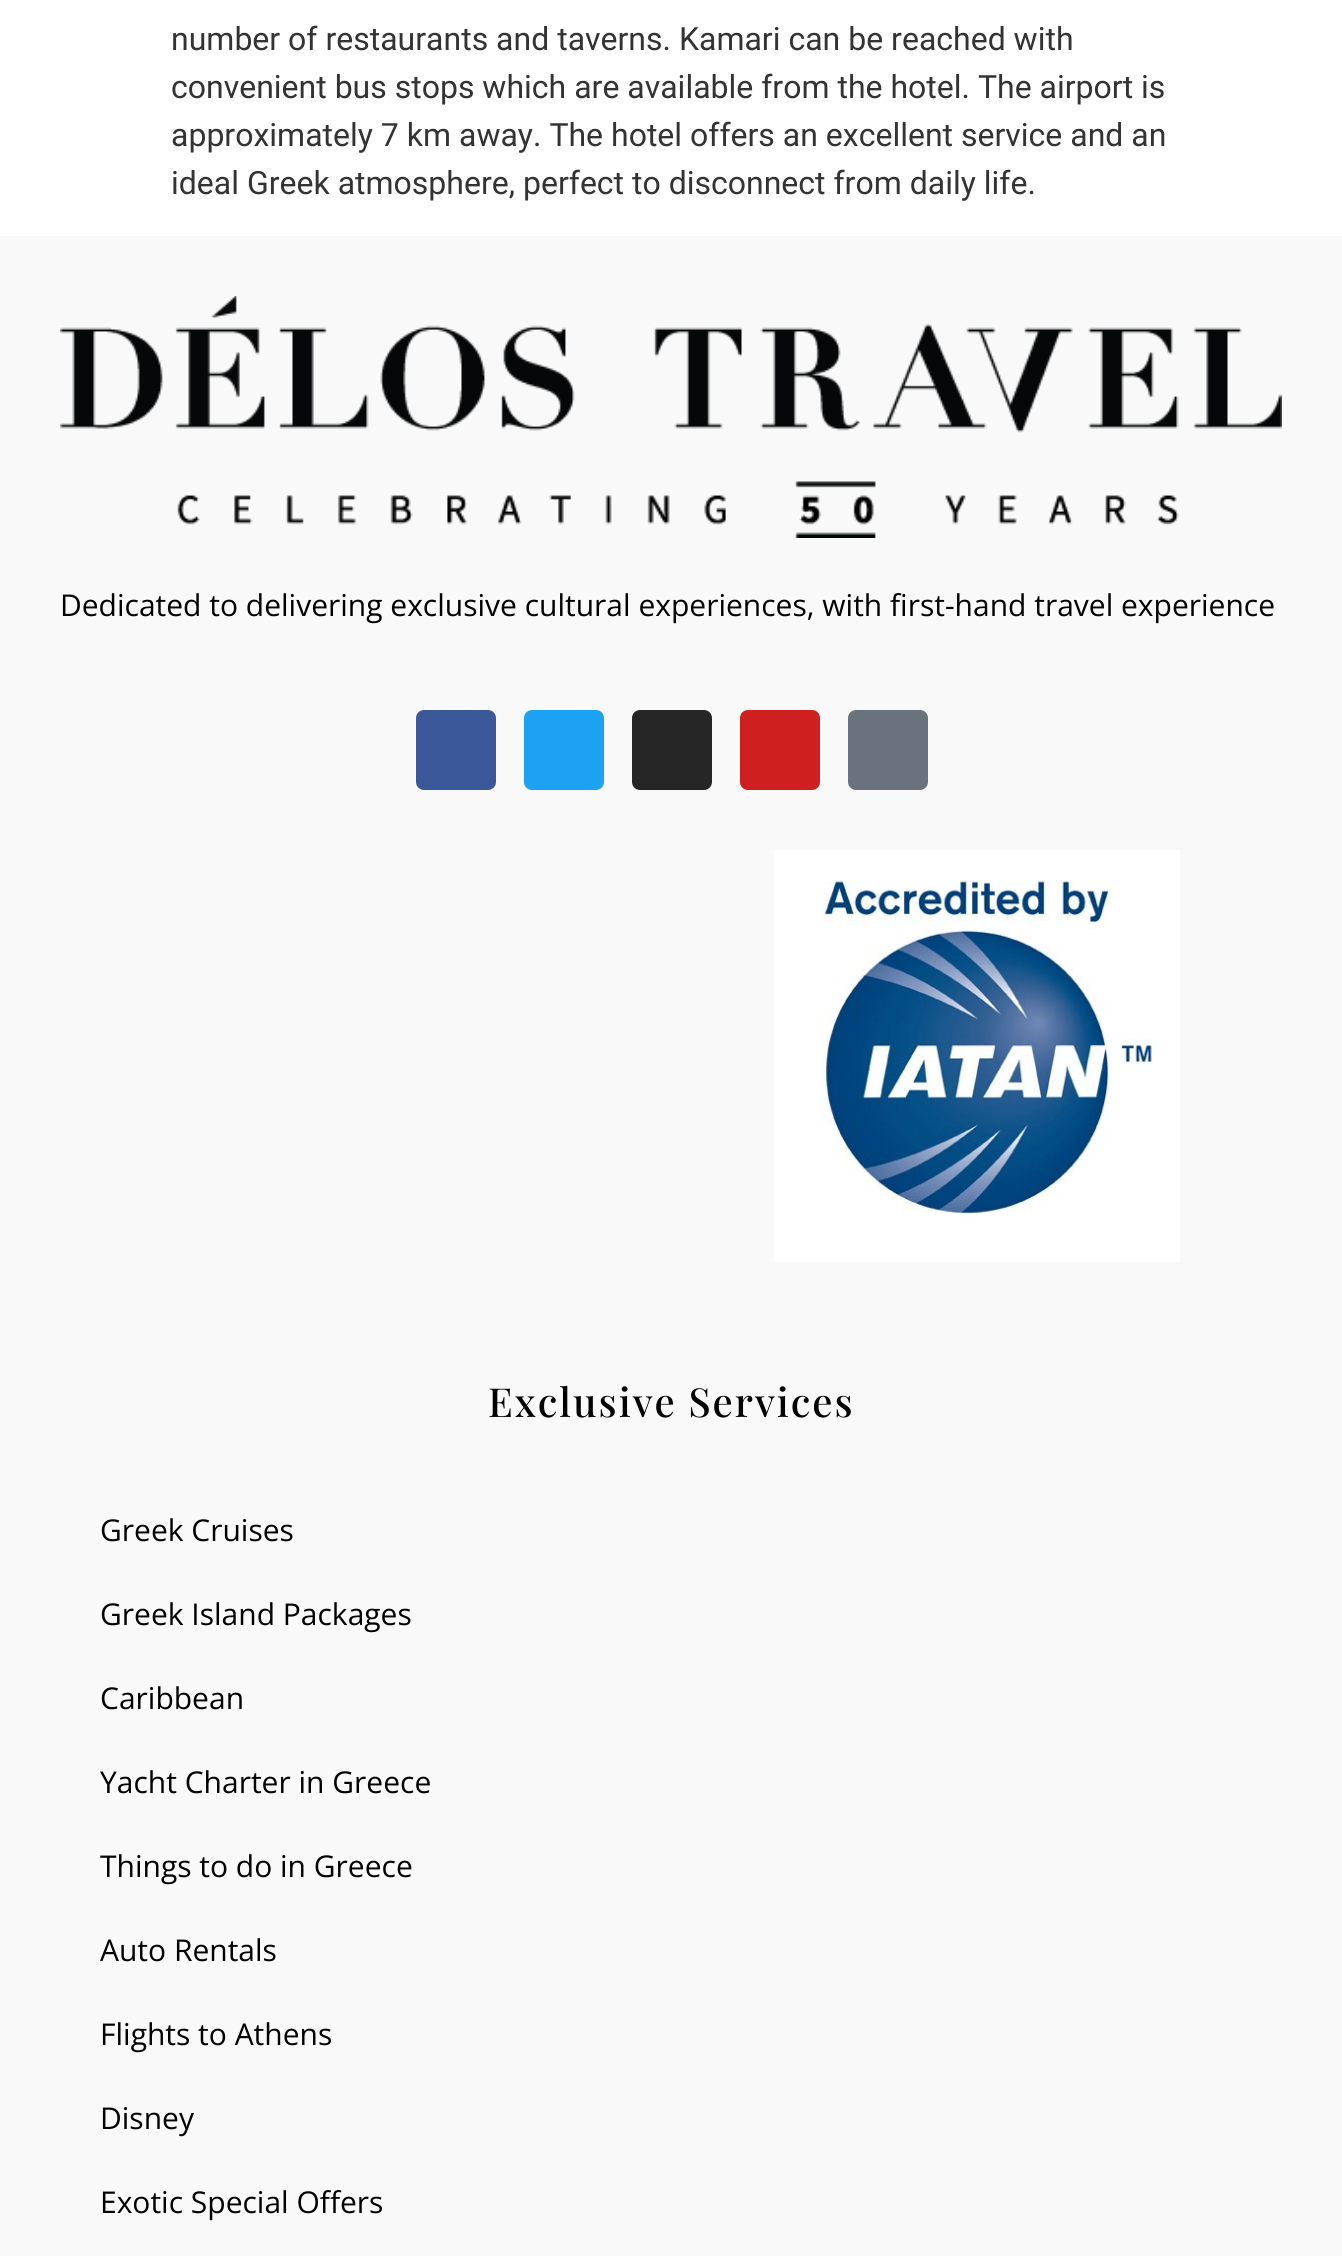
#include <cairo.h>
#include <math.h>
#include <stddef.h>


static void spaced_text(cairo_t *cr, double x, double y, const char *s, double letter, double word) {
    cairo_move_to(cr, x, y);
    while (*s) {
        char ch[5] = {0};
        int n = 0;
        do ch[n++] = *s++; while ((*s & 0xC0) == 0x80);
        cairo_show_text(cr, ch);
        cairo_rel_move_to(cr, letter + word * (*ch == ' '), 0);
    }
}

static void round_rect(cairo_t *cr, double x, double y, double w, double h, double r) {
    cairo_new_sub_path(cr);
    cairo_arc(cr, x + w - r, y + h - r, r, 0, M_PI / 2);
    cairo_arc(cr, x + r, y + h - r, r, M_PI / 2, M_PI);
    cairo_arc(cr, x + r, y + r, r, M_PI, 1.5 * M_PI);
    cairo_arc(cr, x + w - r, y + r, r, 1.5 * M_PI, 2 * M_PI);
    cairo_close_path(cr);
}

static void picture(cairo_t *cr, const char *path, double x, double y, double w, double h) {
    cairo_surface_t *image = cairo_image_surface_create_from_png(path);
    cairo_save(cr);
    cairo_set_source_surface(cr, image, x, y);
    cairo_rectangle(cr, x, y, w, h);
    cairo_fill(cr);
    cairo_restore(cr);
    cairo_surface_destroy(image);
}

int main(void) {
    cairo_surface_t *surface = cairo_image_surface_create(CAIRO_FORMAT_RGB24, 1342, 2256);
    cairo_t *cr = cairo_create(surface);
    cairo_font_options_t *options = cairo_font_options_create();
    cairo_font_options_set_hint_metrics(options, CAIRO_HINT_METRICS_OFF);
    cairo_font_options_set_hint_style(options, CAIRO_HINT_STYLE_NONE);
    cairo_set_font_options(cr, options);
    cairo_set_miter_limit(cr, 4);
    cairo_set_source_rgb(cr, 1, 1, 1);
    cairo_paint(cr);
    cairo_select_font_face(cr, "Roboto", CAIRO_FONT_SLANT_NORMAL, CAIRO_FONT_WEIGHT_NORMAL);
    cairo_set_font_size(cr, 32);
    cairo_set_source_rgb(cr, 0.2, 0.2, 0.2);
    cairo_move_to(cr, 171, 50);
    cairo_show_text(cr, "number of restaurants and taverns. Kamari can be reached with");
    cairo_move_to(cr, 171, 98);
    cairo_show_text(cr, "convenient bus stops which are available from the hotel. The airport is");
    cairo_move_to(cr, 171, 146);
    cairo_show_text(cr, "approximately 7 km away. The hotel offers an excellent service and an");
    cairo_move_to(cr, 171, 194);
    cairo_show_text(cr, "ideal Greek atmosphere, perfect to disconnect from daily life.");
    cairo_set_source_rgb(cr, 0.973, 0.973, 0.973);
    cairo_rectangle(cr, 0, 236, 1342, 2020);
    cairo_fill(cr);
    picture(cr, "img1.png", 60, 296, 1222, 242);
    cairo_select_font_face(cr, "Open Sans", CAIRO_FONT_SLANT_NORMAL, CAIRO_FONT_WEIGHT_NORMAL);
    cairo_set_font_size(cr, 30);
    cairo_set_source_rgb(cr, 0, 0, 0);
    cairo_move_to(cr, 60, 616);
    cairo_show_text(cr, "Dedicated to delivering exclusive cultural experiences, with first-hand travel experience");
    cairo_set_source_rgb(cr, 0.231, 0.349, 0.596);
    round_rect(cr, 416, 710, 80, 80, 8);
    cairo_fill(cr);
    cairo_set_source_rgb(cr, 0.114, 0.631, 0.949);
    round_rect(cr, 524, 710, 80, 80, 8);
    cairo_fill(cr);
    cairo_set_source_rgb(cr, 0.149, 0.149, 0.149);
    round_rect(cr, 632, 710, 80, 80, 8);
    cairo_fill(cr);
    cairo_set_source_rgb(cr, 0.804, 0.125, 0.122);
    round_rect(cr, 740, 710, 80, 80, 8);
    cairo_fill(cr);
    cairo_set_source_rgb(cr, 0.412, 0.447, 0.49);
    round_rect(cr, 848, 710, 80, 80, 8);
    cairo_fill(cr);
    picture(cr, "img2.png", 774, 850, 406, 412);
    cairo_select_font_face(cr, "Playfair Display Medium", CAIRO_FONT_SLANT_NORMAL, CAIRO_FONT_WEIGHT_NORMAL);
    cairo_set_font_size(cr, 40);
    cairo_set_source_rgb(cr, 0, 0, 0);
    spaced_text(cr, 488, 1417, "Exclusive Services", 2, 0);
    cairo_select_font_face(cr, "Open Sans", CAIRO_FONT_SLANT_NORMAL, CAIRO_FONT_WEIGHT_NORMAL);
    cairo_set_font_size(cr, 30);
    cairo_move_to(cr, 100, 1541);
    cairo_show_text(cr, "Greek Cruises");
    cairo_move_to(cr, 100, 1625);
    cairo_show_text(cr, "Greek Island Packages");
    cairo_move_to(cr, 100, 1709);
    cairo_show_text(cr, "Caribbean");
    cairo_move_to(cr, 100, 1793);
    cairo_show_text(cr, "Yacht Charter in Greece");
    cairo_move_to(cr, 100, 1877);
    cairo_show_text(cr, "Things to do in Greece");
    cairo_move_to(cr, 100, 1961);
    cairo_show_text(cr, "Auto Rentals");
    cairo_move_to(cr, 100, 2045);
    cairo_show_text(cr, "Flights to Athens");
    cairo_move_to(cr, 100, 2129);
    cairo_show_text(cr, "Disney");
    cairo_move_to(cr, 100, 2213);
    cairo_show_text(cr, "Exotic Special Offers");
    cairo_surface_write_to_png(surface, "page.png");
    cairo_font_options_destroy(options);
    cairo_destroy(cr);
    cairo_surface_destroy(surface);
    return 0;
}
